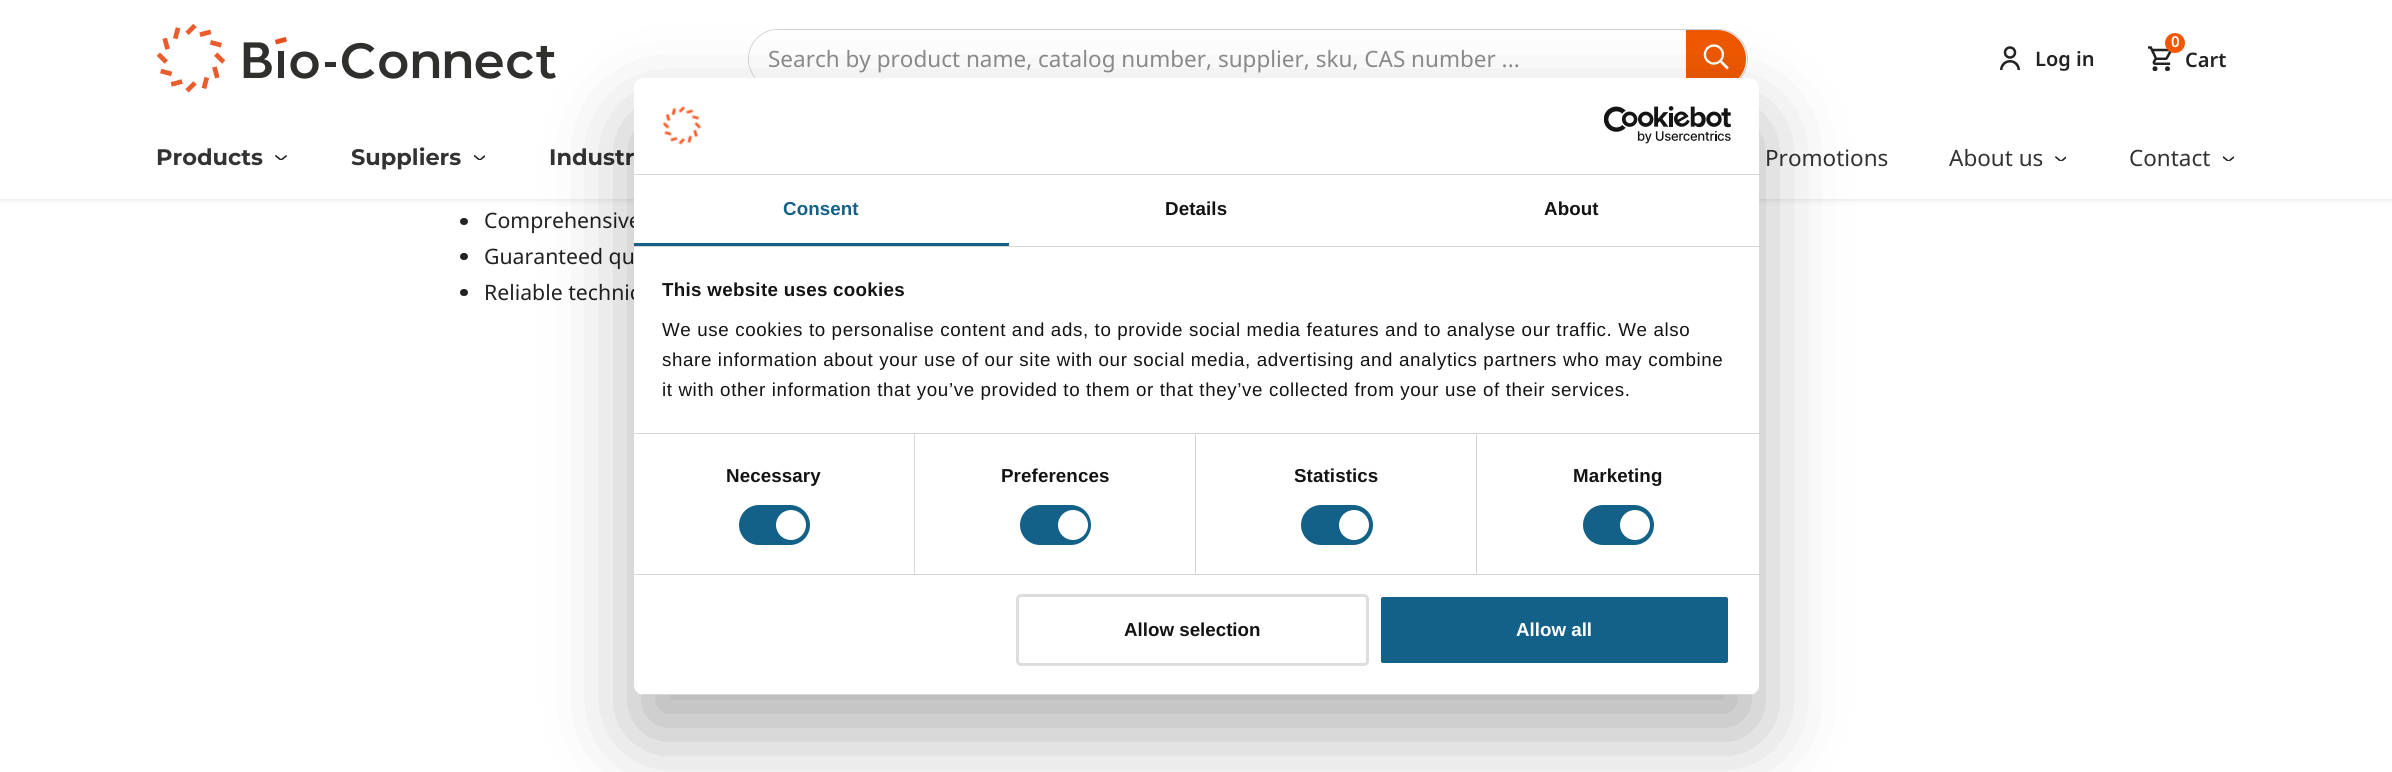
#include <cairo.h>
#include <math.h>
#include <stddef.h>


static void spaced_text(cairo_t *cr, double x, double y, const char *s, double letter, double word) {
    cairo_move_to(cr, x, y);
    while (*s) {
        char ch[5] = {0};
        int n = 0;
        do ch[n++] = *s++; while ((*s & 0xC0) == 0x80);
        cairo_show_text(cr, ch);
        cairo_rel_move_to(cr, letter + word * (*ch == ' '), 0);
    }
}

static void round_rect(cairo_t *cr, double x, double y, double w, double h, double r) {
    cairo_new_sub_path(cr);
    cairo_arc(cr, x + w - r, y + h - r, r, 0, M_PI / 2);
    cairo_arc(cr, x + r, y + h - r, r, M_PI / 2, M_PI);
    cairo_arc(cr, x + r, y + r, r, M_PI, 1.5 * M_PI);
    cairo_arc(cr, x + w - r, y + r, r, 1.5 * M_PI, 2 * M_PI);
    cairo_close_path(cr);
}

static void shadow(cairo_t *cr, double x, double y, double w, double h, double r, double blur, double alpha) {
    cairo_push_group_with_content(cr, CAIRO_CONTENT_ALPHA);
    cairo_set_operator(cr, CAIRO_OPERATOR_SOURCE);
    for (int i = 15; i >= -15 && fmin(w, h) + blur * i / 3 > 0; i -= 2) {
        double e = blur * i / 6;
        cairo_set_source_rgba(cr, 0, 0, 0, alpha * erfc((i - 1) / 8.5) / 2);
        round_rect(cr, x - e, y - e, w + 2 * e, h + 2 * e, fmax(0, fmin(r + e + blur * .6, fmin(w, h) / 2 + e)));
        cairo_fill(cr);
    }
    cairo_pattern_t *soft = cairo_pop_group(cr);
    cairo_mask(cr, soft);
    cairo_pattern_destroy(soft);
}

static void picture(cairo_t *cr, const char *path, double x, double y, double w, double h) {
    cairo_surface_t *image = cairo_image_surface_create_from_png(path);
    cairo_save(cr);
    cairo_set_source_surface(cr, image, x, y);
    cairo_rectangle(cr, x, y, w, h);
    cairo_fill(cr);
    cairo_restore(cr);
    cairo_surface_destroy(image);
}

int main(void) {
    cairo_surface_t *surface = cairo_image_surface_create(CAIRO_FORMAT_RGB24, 2392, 772);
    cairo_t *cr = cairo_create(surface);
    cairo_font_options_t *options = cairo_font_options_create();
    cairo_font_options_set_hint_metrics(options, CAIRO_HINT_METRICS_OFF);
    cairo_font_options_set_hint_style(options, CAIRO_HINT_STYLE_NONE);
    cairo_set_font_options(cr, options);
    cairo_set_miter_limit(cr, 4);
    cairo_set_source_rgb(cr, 1, 1, 1);
    cairo_paint(cr);
    cairo_set_source_rgb(cr, 0.188, 0.192, 0.2);
    shadow(cr, 0, 1, 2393, 200, 0, 2.5, 0.1);
    cairo_set_source_rgb(cr, 1, 1, 1);
    cairo_rectangle(cr, 0, 0, 2392, 199);
    cairo_fill(cr);
    picture(cr, "img1.png", 156, 24, 400, 69);
    round_rect(cr, 748.5, 29.5, 999, 59, 29.5);
    cairo_set_source_rgb(cr, 0.82, 0.82, 0.82);
    cairo_set_line_width(cr, 1);
    cairo_stroke(cr);
    cairo_set_source_rgb(cr, 0.941, 0.345, 0);
    cairo_new_path(cr);
    cairo_move_to(cr, 1685, 30);
    cairo_line_to(cr, 1717, 30);
    cairo_curve_to(cr, 1733, 30, 1746, 43, 1746, 59);
    cairo_curve_to(cr, 1746, 75, 1733, 88, 1717, 88);
    cairo_line_to(cr, 1685, 88);
    cairo_close_path(cr);
    cairo_fill(cr);
    cairo_set_source_rgb(cr, 1, 1, 1);
    cairo_new_path(cr);
    cairo_move_to(cr, 778, 30);
    cairo_line_to(cr, 1686, 30);
    cairo_line_to(cr, 1686, 88);
    cairo_line_to(cr, 778, 88);
    cairo_curve_to(cr, 762, 88, 749, 75, 749, 59);
    cairo_curve_to(cr, 749, 43, 762, 30, 778, 30);
    cairo_close_path(cr);
    cairo_fill(cr);
    cairo_select_font_face(cr, "Noto Sans", CAIRO_FONT_SLANT_NORMAL, CAIRO_FONT_WEIGHT_NORMAL);
    cairo_set_font_size(cr, 22.5);
    cairo_set_source_rgb(cr, 0.553, 0.553, 0.549);
    cairo_move_to(cr, 768, 67);
    cairo_show_text(cr, "Search by product name, catalog number, supplier, sku, CAS number ...");
    picture(cr, "img2.png", 1703, 44, 26, 26);
    picture(cr, "img3.png", 2000, 46, 20, 24);
    cairo_select_font_face(cr, "Noto Sans SemiBold", CAIRO_FONT_SLANT_NORMAL, CAIRO_FONT_WEIGHT_NORMAL);
    cairo_set_font_size(cr, 20);
    cairo_set_source_rgb(cr, 0.133, 0.133, 0.133);
    cairo_move_to(cr, 2035, 66);
    cairo_show_text(cr, "Log in");
    picture(cr, "img4.png", 2148, 46, 24, 25);
    cairo_set_source_rgb(cr, 0.941, 0.345, 0);
    cairo_arc(cr, 2175, 43, 10, 0, 2 * M_PI);
    cairo_fill(cr);
    cairo_set_font_size(cr, 15);
    cairo_set_source_rgb(cr, 1, 1, 1);
    cairo_move_to(cr, 2171, 47);
    cairo_show_text(cr, "0");
    cairo_set_font_size(cr, 20);
    cairo_set_source_rgb(cr, 0.133, 0.133, 0.133);
    cairo_move_to(cr, 2185, 67);
    cairo_show_text(cr, "Cart");
    cairo_select_font_face(cr, "Montserrat", CAIRO_FONT_SLANT_NORMAL, CAIRO_FONT_WEIGHT_BOLD);
    cairo_set_font_size(cr, 22.5);
    cairo_set_source_rgb(cr, 0.2, 0.2, 0.2);
    cairo_move_to(cr, 156, 165);
    cairo_show_text(cr, "Products");
    picture(cr, "img5.png", 275, 155, 12, 5);
    cairo_move_to(cr, 351, 165);
    cairo_show_text(cr, "Suppliers");
    picture(cr, "img6.png", 474, 155, 11, 5);
    cairo_move_to(cr, 549, 165);
    cairo_show_text(cr, "Industr");
    cairo_select_font_face(cr, "Noto Sans", CAIRO_FONT_SLANT_NORMAL, CAIRO_FONT_WEIGHT_NORMAL);
    cairo_move_to(cr, 1765, 166);
    cairo_show_text(cr, "Promotions");
    cairo_move_to(cr, 1949, 166);
    cairo_show_text(cr, "About us");
    picture(cr, "img7.png", 2055, 156, 11, 5);
    cairo_move_to(cr, 2129, 166);
    cairo_show_text(cr, "Contact");
    picture(cr, "img8.png", 2223, 156, 11, 5);
    cairo_set_source_rgb(cr, 0.133, 0.133, 0.133);
    round_rect(cr, 460, 218, 8, 7, 3.5);
    cairo_fill(cr);
    cairo_set_font_size(cr, 21.25);
    cairo_move_to(cr, 484, 228);
    cairo_show_text(cr, "Comprehensive");
    round_rect(cr, 460, 253, 8, 7, 3.5);
    cairo_fill(cr);
    cairo_move_to(cr, 484, 264);
    cairo_show_text(cr, "Guaranteed qu");
    round_rect(cr, 460, 289, 8, 7, 3.5);
    cairo_fill(cr);
    cairo_move_to(cr, 484, 300);
    cairo_show_text(cr, "Reliable technic");
    cairo_set_source_rgb(cr, 0, 0, 0);
    shadow(cr, 634, 118, 1125, 617, 10, 42.5, 0.3);
    cairo_set_source_rgb(cr, 1, 1, 1);
    round_rect(cr, 634, 78, 1125, 617, 10);
    cairo_fill(cr);
    cairo_set_source_rgb(cr, 0.839, 0.839, 0.839);
    cairo_rectangle(cr, 634, 174, 1125, 1);
    cairo_fill(cr);
    picture(cr, "img9.png", 662, 105, 40, 40);
    picture(cr, "img10.png", 1604, 106, 127, 38);
    cairo_rectangle(cr, 634, 246, 1125, 1);
    cairo_fill(cr);
    cairo_set_source_rgb(cr, 0.078, 0.38, 0.533);
    cairo_rectangle(cr, 634, 243, 375, 3);
    cairo_fill(cr);
    cairo_select_font_face(cr, "Liberation Sans", CAIRO_FONT_SLANT_NORMAL, CAIRO_FONT_WEIGHT_BOLD);
    cairo_set_font_size(cr, 18.75);
    spaced_text(cr, 783, 215, "Consent", 0.1, 0);
    cairo_set_source_rgb(cr, 0.078, 0.078, 0.078);
    spaced_text(cr, 1165, 215, "Details", 0.1, 0);
    spaced_text(cr, 1544, 215, "About", 0.1, 0);
    cairo_set_source_rgb(cr, 0.839, 0.839, 0.839);
    cairo_rectangle(cr, 634, 433, 1125, 1);
    cairo_fill(cr);
    cairo_set_source_rgb(cr, 0.078, 0.078, 0.078);
    spaced_text(cr, 662, 296, "This website uses cookies", 0.3, 0);
    cairo_select_font_face(cr, "Liberation Sans", CAIRO_FONT_SLANT_NORMAL, CAIRO_FONT_WEIGHT_NORMAL);
    spaced_text(cr, 662, 336, "We use cookies to personalise content and ads, to provide social media features and to analyse our traffic. We also", 0.62, 0);
    spaced_text(cr, 662, 366, "share information about your use of our site with our social media, advertising and analytics partners who may combine", 0.62, 0);
    spaced_text(cr, 662, 396, "it with other information that you’ve provided to them or that they’ve collected from your use of their services.", 0.62, 0);
    cairo_set_source_rgb(cr, 0.839, 0.839, 0.839);
    cairo_rectangle(cr, 634, 574, 1125, 1);
    cairo_fill(cr);
    cairo_rectangle(cr, 914, 434, 1, 140);
    cairo_fill(cr);
    cairo_select_font_face(cr, "Liberation Sans", CAIRO_FONT_SLANT_NORMAL, CAIRO_FONT_WEIGHT_BOLD);
    cairo_set_source_rgb(cr, 0.078, 0.078, 0.078);
    spaced_text(cr, 726, 482, "Necessary", 0.1, 0);
    cairo_set_source_rgb(cr, 0.078, 0.38, 0.533);
    round_rect(cr, 739, 505, 71, 40, 20);
    cairo_fill(cr);
    cairo_set_source_rgb(cr, 1, 1, 1);
    cairo_arc(cr, 791, 525, 15, 0, 2 * M_PI);
    cairo_fill(cr);
    cairo_set_source_rgb(cr, 0.839, 0.839, 0.839);
    cairo_rectangle(cr, 1195, 434, 1, 140);
    cairo_fill(cr);
    cairo_set_source_rgb(cr, 0.078, 0.078, 0.078);
    spaced_text(cr, 1001, 482, "Preferences", 0.1, 0);
    cairo_set_source_rgb(cr, 0.078, 0.38, 0.533);
    round_rect(cr, 1020, 505, 71, 40, 20);
    cairo_fill(cr);
    cairo_set_source_rgb(cr, 1, 1, 1);
    cairo_arc(cr, 1073, 525, 15, 0, 2 * M_PI);
    cairo_fill(cr);
    cairo_set_source_rgb(cr, 0.839, 0.839, 0.839);
    cairo_rectangle(cr, 1476, 434, 1, 140);
    cairo_fill(cr);
    cairo_set_source_rgb(cr, 0.078, 0.078, 0.078);
    spaced_text(cr, 1294, 482, "Statistics", 0.1, 0);
    cairo_set_source_rgb(cr, 0.078, 0.38, 0.533);
    round_rect(cr, 1301, 505, 72, 40, 20);
    cairo_fill(cr);
    cairo_set_source_rgb(cr, 1, 1, 1);
    cairo_arc(cr, 1354, 525, 15, 0, 2 * M_PI);
    cairo_fill(cr);
    cairo_set_source_rgb(cr, 0.078, 0.078, 0.078);
    spaced_text(cr, 1573, 482, "Marketing", 0.1, 0);
    cairo_set_source_rgb(cr, 0.078, 0.38, 0.533);
    round_rect(cr, 1583, 505, 71, 40, 20);
    cairo_fill(cr);
    cairo_set_source_rgb(cr, 1, 1, 1);
    cairo_arc(cr, 1635, 525, 15, 0, 2 * M_PI);
    cairo_fill(cr);
    cairo_save(cr);
    round_rect(cr, 634, 78, 1125, 617, 10);
    cairo_clip(cr);
    cairo_set_source_rgb(cr, 0.839, 0.839, 0.839);
    cairo_rectangle(cr, 634, 694, 1125, 1);
    cairo_fill(cr);
    cairo_restore(cr);
    round_rect(cr, 1017.5, 595.5, 350, 69, 3.5);
    cairo_set_source_rgb(cr, 0.867, 0.867, 0.867);
    cairo_set_line_width(cr, 3);
    cairo_stroke(cr);
    cairo_set_source_rgb(cr, 0.078, 0.078, 0.078);
    cairo_move_to(cr, 1124, 636);
    cairo_show_text(cr, "Allow selection");
    cairo_set_source_rgb(cr, 0.078, 0.38, 0.533);
    round_rect(cr, 1379.5, 595.5, 350, 69, 3.5);
    cairo_fill_preserve(cr);
    cairo_set_source_rgb(cr, 1, 1, 1);
    cairo_stroke(cr);
    cairo_move_to(cr, 1516, 636);
    cairo_show_text(cr, "Allow all");
    cairo_surface_write_to_png(surface, "page.png");
    cairo_font_options_destroy(options);
    cairo_destroy(cr);
    cairo_surface_destroy(surface);
    return 0;
}
